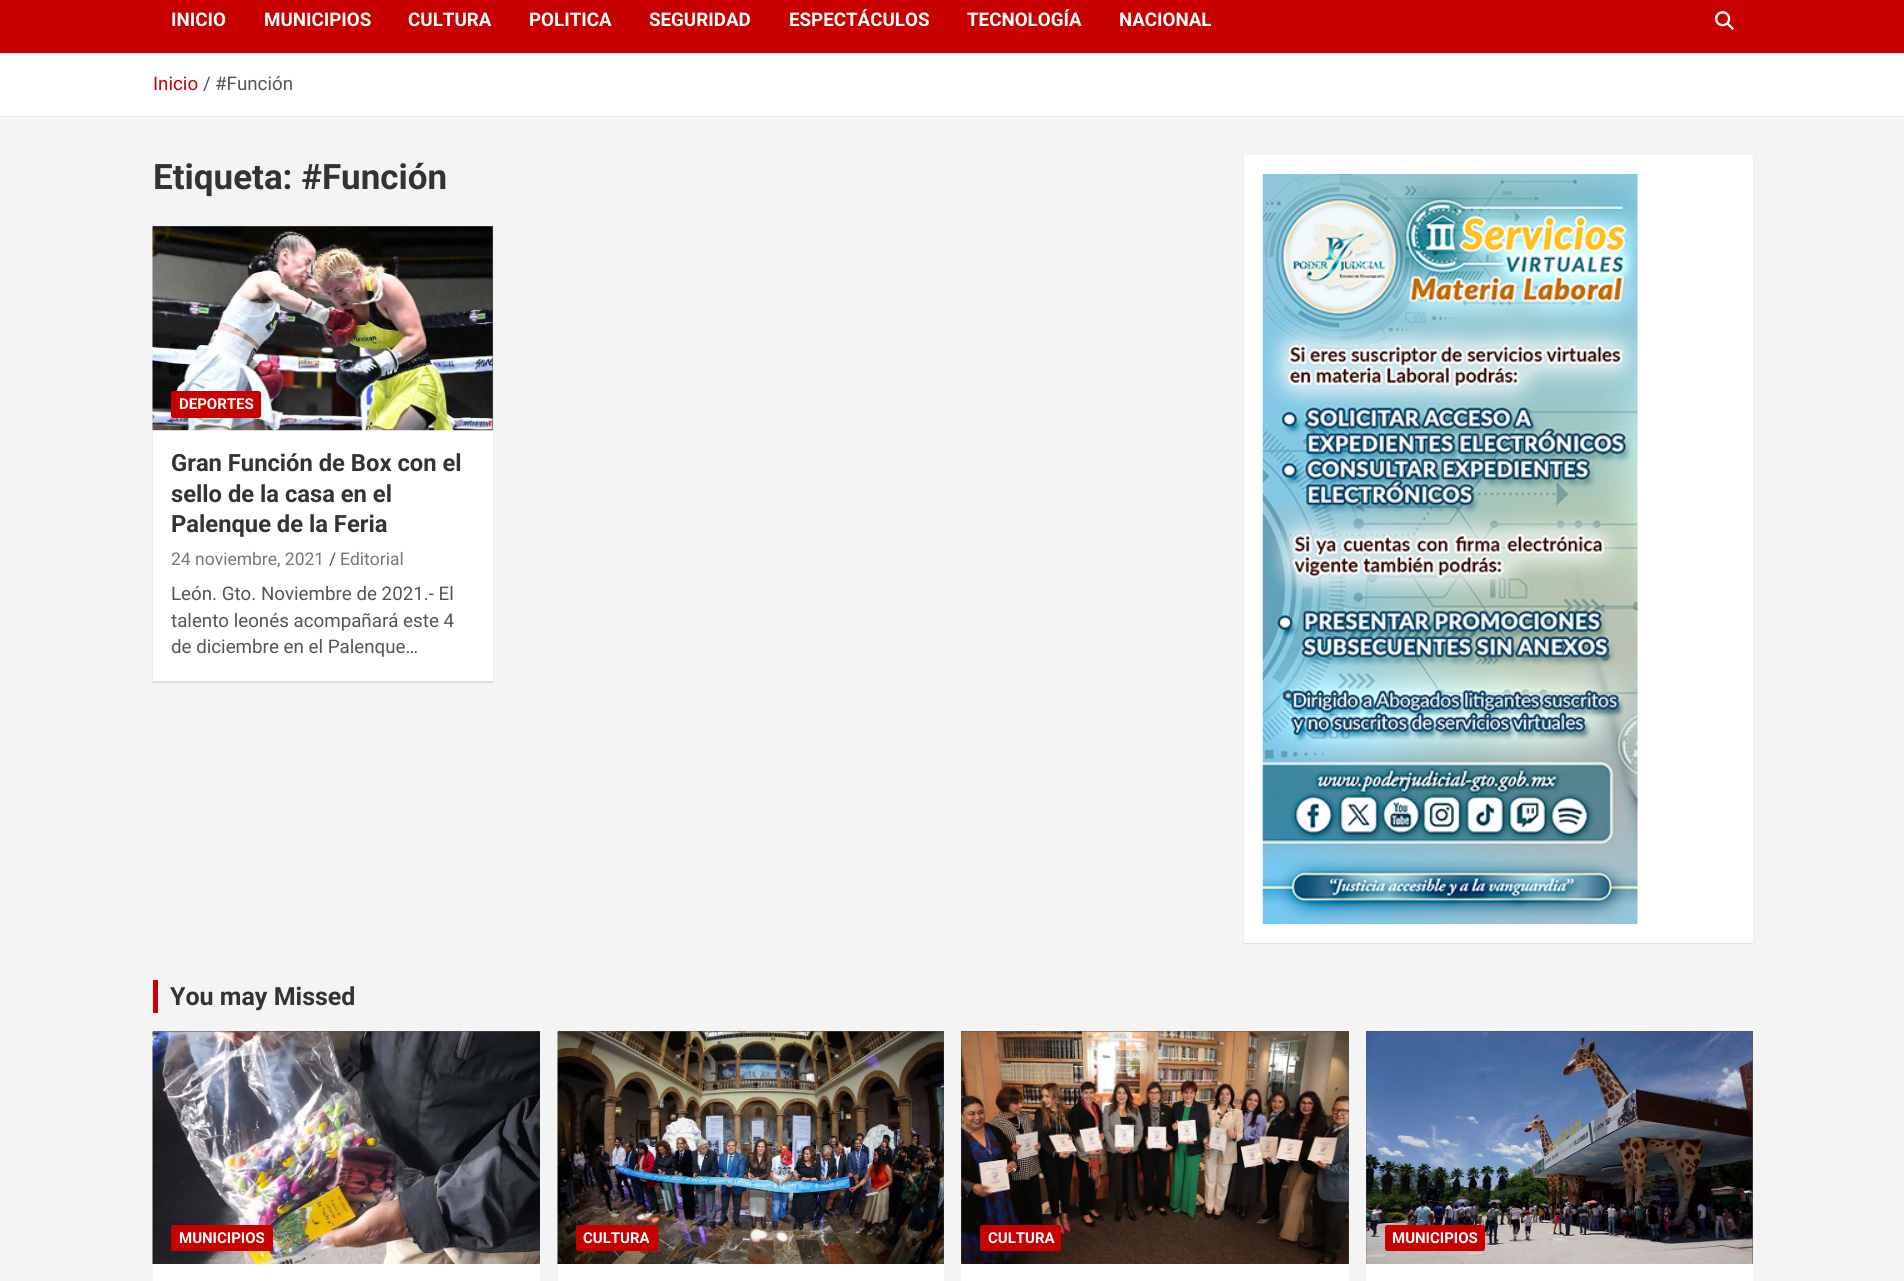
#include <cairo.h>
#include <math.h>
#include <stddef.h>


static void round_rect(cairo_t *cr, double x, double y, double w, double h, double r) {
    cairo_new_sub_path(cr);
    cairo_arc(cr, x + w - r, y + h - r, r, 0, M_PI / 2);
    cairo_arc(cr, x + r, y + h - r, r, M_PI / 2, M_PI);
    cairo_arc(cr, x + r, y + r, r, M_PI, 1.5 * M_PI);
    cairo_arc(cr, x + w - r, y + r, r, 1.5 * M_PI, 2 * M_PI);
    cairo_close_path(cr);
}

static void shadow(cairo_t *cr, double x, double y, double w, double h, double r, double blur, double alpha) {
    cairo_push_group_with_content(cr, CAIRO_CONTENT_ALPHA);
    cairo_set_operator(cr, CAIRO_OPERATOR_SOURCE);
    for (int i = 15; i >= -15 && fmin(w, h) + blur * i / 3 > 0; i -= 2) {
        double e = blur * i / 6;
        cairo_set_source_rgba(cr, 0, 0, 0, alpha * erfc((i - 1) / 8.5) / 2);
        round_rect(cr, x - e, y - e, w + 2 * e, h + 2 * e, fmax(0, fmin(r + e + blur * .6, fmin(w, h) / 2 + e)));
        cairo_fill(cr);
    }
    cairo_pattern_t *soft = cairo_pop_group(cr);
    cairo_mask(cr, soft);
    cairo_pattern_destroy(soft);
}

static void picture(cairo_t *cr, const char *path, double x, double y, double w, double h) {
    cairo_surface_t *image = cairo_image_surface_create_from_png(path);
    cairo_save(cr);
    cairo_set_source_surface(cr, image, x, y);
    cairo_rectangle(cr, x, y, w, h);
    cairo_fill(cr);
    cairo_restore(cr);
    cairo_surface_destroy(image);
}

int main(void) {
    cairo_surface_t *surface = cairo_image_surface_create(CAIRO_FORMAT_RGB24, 1904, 1281);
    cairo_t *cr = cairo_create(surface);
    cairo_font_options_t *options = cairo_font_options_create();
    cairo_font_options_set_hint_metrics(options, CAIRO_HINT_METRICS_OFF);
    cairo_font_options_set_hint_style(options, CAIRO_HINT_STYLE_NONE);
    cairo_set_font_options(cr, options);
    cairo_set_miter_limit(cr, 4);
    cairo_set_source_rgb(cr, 0.957, 0.957, 0.957);
    cairo_paint(cr);
    cairo_set_source_rgb(cr, 0.784, 0, 0);
    cairo_rectangle(cr, 0, 0, 1904, 53);
    cairo_fill(cr);
    cairo_select_font_face(cr, "Roboto", CAIRO_FONT_SLANT_NORMAL, CAIRO_FONT_WEIGHT_BOLD);
    cairo_set_font_size(cr, 18.75);
    cairo_set_source_rgb(cr, 1, 1, 1);
    cairo_move_to(cr, 171, 26);
    cairo_show_text(cr, "INICIO");
    cairo_move_to(cr, 264, 26);
    cairo_show_text(cr, "MUNICIPIOS");
    cairo_move_to(cr, 408, 26);
    cairo_show_text(cr, "CULTURA");
    cairo_move_to(cr, 529, 26);
    cairo_show_text(cr, "POLITICA");
    cairo_move_to(cr, 649, 26);
    cairo_show_text(cr, "SEGURIDAD");
    cairo_move_to(cr, 789, 26);
    cairo_show_text(cr, "ESPECTÁCULOS");
    cairo_move_to(cr, 967, 26);
    cairo_show_text(cr, "TECNOLOGÍA");
    cairo_move_to(cr, 1119, 26);
    cairo_show_text(cr, "NACIONAL");
    picture(cr, "img1.png", 1715, 11, 19, 19);
    cairo_rectangle(cr, 0, 53, 1904, 65);
    cairo_fill(cr);
    cairo_set_source_rgb(cr, 0.902, 0.902, 0.902);
    cairo_rectangle(cr, 0, 116, 1904, 1);
    cairo_fill(cr);
    cairo_select_font_face(cr, "Roboto", CAIRO_FONT_SLANT_NORMAL, CAIRO_FONT_WEIGHT_NORMAL);
    cairo_set_source_rgb(cr, 0.784, 0, 0);
    cairo_move_to(cr, 153, 90);
    cairo_show_text(cr, "Inicio");
    cairo_set_source_rgb(cr, 0.333, 0.333, 0.333);
    cairo_move_to(cr, 203, 90);
    cairo_show_text(cr, "/");
    cairo_move_to(cr, 215, 90);
    cairo_show_text(cr, "#Función");
    cairo_select_font_face(cr, "Roboto", CAIRO_FONT_SLANT_NORMAL, CAIRO_FONT_WEIGHT_BOLD);
    cairo_set_font_size(cr, 35);
    cairo_set_source_rgb(cr, 0.2, 0.2, 0.2);
    cairo_move_to(cr, 153, 189);
    cairo_show_text(cr, "Etiqueta: #Función");
    cairo_set_source_rgb(cr, 0, 0, 0);
    shadow(cr, 153, 228, 340, 455, 0, 0.5, 0.1);
    cairo_set_source_rgb(cr, 1, 1, 1);
    cairo_rectangle(cr, 153, 430, 340, 251);
    cairo_fill(cr);
    cairo_set_source_rgb(cr, 0.333, 0.333, 0.333);
    cairo_rectangle(cr, 153, 226, 340, 204);
    cairo_fill(cr);
    picture(cr, "img2.png", 152, 226, 341, 205);
    cairo_set_source_rgb(cr, 0.784, 0, 0);
    round_rect(cr, 171, 391, 90, 27, 2.5);
    cairo_fill(cr);
    cairo_set_font_size(cr, 15);
    cairo_set_source_rgb(cr, 1, 1, 1);
    cairo_move_to(cr, 179, 409);
    cairo_show_text(cr, "DEPORTES");
    cairo_set_font_size(cr, 23.75);
    cairo_set_source_rgb(cr, 0.2, 0.2, 0.2);
    cairo_move_to(cr, 171, 471);
    cairo_show_text(cr, "Gran Función de Box con el");
    cairo_move_to(cr, 171, 502);
    cairo_show_text(cr, "sello de la casa en el");
    cairo_move_to(cr, 171, 532);
    cairo_show_text(cr, "Palenque de la Feria");
    cairo_select_font_face(cr, "Roboto", CAIRO_FONT_SLANT_NORMAL, CAIRO_FONT_WEIGHT_NORMAL);
    cairo_set_font_size(cr, 17.5);
    cairo_set_source_rgb(cr, 0.467, 0.467, 0.467);
    cairo_move_to(cr, 171, 565);
    cairo_show_text(cr, "24 noviembre, 2021");
    cairo_set_source_rgb(cr, 0.333, 0.333, 0.333);
    cairo_move_to(cr, 329, 565);
    cairo_show_text(cr, "/");
    cairo_set_source_rgb(cr, 0.467, 0.467, 0.467);
    cairo_move_to(cr, 340, 565);
    cairo_show_text(cr, "Editorial");
    cairo_set_font_size(cr, 18.75);
    cairo_set_source_rgb(cr, 0.333, 0.333, 0.333);
    cairo_move_to(cr, 171, 600);
    cairo_show_text(cr, "León. Gto. Noviembre de 2021.- El");
    cairo_move_to(cr, 171, 627);
    cairo_show_text(cr, "talento leonés acompañará este 4");
    cairo_move_to(cr, 171, 653);
    cairo_show_text(cr, "de diciembre en el Palenque…");
    cairo_set_source_rgb(cr, 0, 0, 0);
    shadow(cr, 1244, 156, 509, 788, 0, 0.5, 0.1);
    cairo_set_source_rgb(cr, 1, 1, 1);
    cairo_rectangle(cr, 1244, 155, 509, 788);
    cairo_fill(cr);
    picture(cr, "img3.png", 1262, 174, 376, 750);
    cairo_set_source_rgb(cr, 0.784, 0, 0);
    cairo_rectangle(cr, 153, 980, 5, 33);
    cairo_fill(cr);
    cairo_select_font_face(cr, "Roboto", CAIRO_FONT_SLANT_NORMAL, CAIRO_FONT_WEIGHT_BOLD);
    cairo_set_font_size(cr, 25);
    cairo_set_source_rgb(cr, 0.2, 0.2, 0.2);
    cairo_move_to(cr, 170, 1005);
    cairo_show_text(cr, "You may Missed");
    cairo_set_source_rgb(cr, 1, 1, 1);
    cairo_rectangle(cr, 153, 1264, 387, 17);
    cairo_fill(cr);
    cairo_set_source_rgb(cr, 0.333, 0.333, 0.333);
    cairo_rectangle(cr, 153, 1031, 387, 1);
    cairo_fill(cr);
    picture(cr, "img4.png", 152, 1031, 388, 233);
    cairo_set_source_rgb(cr, 0.784, 0, 0);
    round_rect(cr, 171, 1225, 102, 26, 2.5);
    cairo_fill(cr);
    cairo_set_font_size(cr, 15);
    cairo_set_source_rgb(cr, 1, 1, 1);
    cairo_move_to(cr, 179, 1243);
    cairo_show_text(cr, "MUNICIPIOS");
    cairo_rectangle(cr, 558, 1264, 386, 17);
    cairo_fill(cr);
    cairo_set_source_rgb(cr, 0.333, 0.333, 0.333);
    cairo_rectangle(cr, 558, 1031, 386, 233);
    cairo_fill(cr);
    picture(cr, "img5.png", 557, 1031, 387, 233);
    cairo_set_source_rgb(cr, 0.784, 0, 0);
    round_rect(cr, 576, 1225, 82, 26, 2.5);
    cairo_fill(cr);
    cairo_set_source_rgb(cr, 1, 1, 1);
    cairo_move_to(cr, 583, 1243);
    cairo_show_text(cr, "CULTURA");
    cairo_rectangle(cr, 961, 1264, 388, 17);
    cairo_fill(cr);
    cairo_set_source_rgb(cr, 0.333, 0.333, 0.333);
    cairo_rectangle(cr, 961, 1031, 388, 233);
    cairo_fill(cr);
    picture(cr, "img6.png", 961, 1031, 388, 233);
    cairo_set_source_rgb(cr, 0.784, 0, 0);
    round_rect(cr, 980, 1225, 81, 26, 2.5);
    cairo_fill(cr);
    cairo_set_source_rgb(cr, 1, 1, 1);
    cairo_move_to(cr, 988, 1243);
    cairo_show_text(cr, "CULTURA");
    cairo_rectangle(cr, 1366, 1264, 387, 17);
    cairo_fill(cr);
    cairo_set_source_rgb(cr, 0.333, 0.333, 0.333);
    cairo_rectangle(cr, 1366, 1031, 387, 233);
    cairo_fill(cr);
    picture(cr, "img7.png", 1366, 1031, 387, 233);
    cairo_set_source_rgb(cr, 0.784, 0, 0);
    round_rect(cr, 1385, 1225, 100, 26, 2.5);
    cairo_fill(cr);
    cairo_set_source_rgb(cr, 1, 1, 1);
    cairo_move_to(cr, 1392, 1243);
    cairo_show_text(cr, "MUNICIPIOS");
    cairo_surface_write_to_png(surface, "page.png");
    cairo_font_options_destroy(options);
    cairo_destroy(cr);
    cairo_surface_destroy(surface);
    return 0;
}
